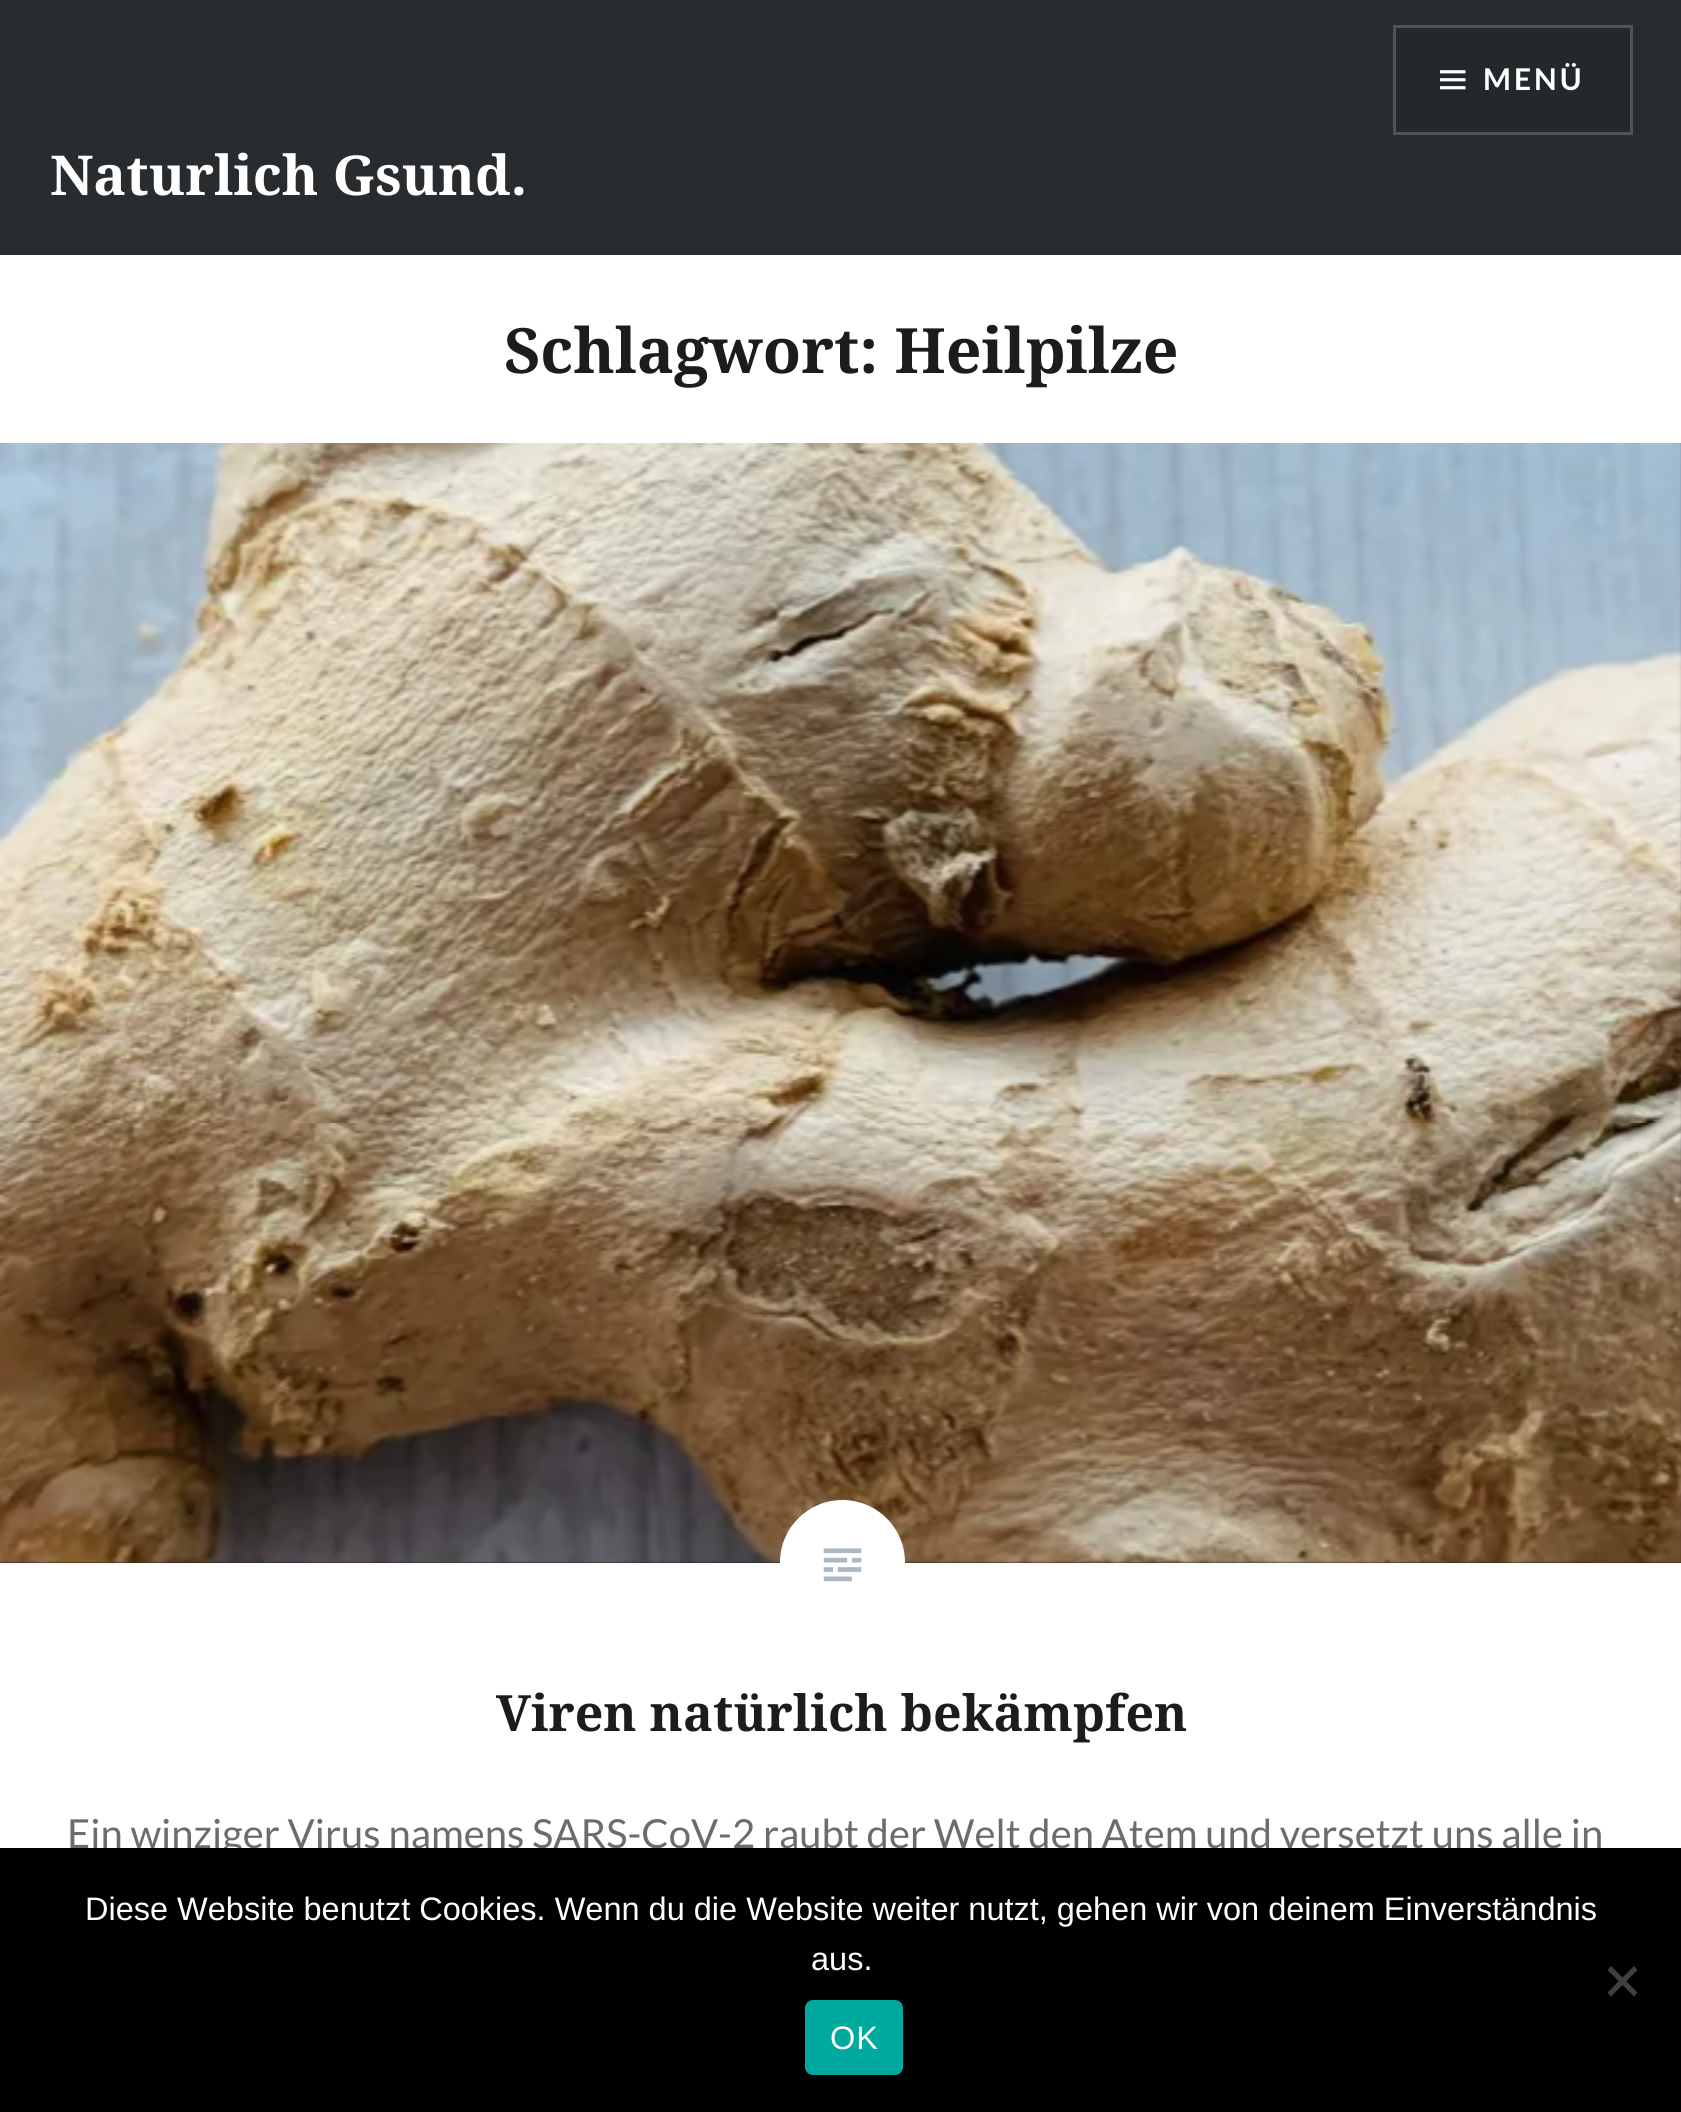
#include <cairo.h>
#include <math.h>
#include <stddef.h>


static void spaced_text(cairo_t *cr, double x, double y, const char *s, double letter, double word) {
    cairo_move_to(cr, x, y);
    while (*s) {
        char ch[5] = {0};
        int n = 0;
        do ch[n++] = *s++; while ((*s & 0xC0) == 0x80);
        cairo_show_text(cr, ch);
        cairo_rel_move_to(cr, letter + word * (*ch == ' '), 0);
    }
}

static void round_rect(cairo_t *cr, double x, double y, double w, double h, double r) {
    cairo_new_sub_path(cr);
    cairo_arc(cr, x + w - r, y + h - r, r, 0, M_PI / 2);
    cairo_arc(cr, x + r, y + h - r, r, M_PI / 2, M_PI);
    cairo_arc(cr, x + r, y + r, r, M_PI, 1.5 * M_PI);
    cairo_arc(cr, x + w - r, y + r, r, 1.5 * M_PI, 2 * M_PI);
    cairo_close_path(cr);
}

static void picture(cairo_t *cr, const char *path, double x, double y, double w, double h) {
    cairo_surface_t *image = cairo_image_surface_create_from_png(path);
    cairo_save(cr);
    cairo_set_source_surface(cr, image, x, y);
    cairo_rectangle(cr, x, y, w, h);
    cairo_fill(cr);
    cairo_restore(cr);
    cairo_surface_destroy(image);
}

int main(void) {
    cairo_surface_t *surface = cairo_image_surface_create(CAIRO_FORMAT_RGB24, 1681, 2112);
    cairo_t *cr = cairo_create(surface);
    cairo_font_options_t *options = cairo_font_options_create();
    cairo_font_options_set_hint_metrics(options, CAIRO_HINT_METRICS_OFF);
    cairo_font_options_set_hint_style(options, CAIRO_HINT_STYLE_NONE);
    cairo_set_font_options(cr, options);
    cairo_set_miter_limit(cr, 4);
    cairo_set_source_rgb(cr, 1, 1, 1);
    cairo_paint(cr);
    cairo_set_source_rgb(cr, 0.161, 0.173, 0.184);
    cairo_rectangle(cr, 0, 0, 1681, 255);
    cairo_fill(cr);
    cairo_set_source_rgb(cr, 0.145, 0.157, 0.165);
    cairo_rectangle(cr, 1394.5, 26.5, 237, 107);
    cairo_fill_preserve(cr);
    cairo_set_source_rgb(cr, 0.318, 0.325, 0.333);
    cairo_set_line_width(cr, 3);
    cairo_stroke(cr);
    picture(cr, "img1.png", 1440, 70, 26, 20);
    cairo_select_font_face(cr, "Lato", CAIRO_FONT_SLANT_NORMAL, CAIRO_FONT_WEIGHT_BOLD);
    cairo_set_font_size(cr, 30);
    cairo_set_source_rgb(cr, 1, 1, 1);
    spaced_text(cr, 1483, 90, "MENÜ", 3, 0);
    cairo_select_font_face(cr, "Noto Serif", CAIRO_FONT_SLANT_NORMAL, CAIRO_FONT_WEIGHT_BOLD);
    cairo_set_font_size(cr, 55);
    cairo_move_to(cr, 50, 195);
    cairo_show_text(cr, "Naturlich Gsund.");
    cairo_set_font_size(cr, 62.5);
    cairo_set_source_rgb(cr, 0.102, 0.11, 0.118);
    cairo_move_to(cr, 504, 373);
    cairo_show_text(cr, "Schlagwort: Heilpilze");
    cairo_set_source_rgb(cr, 0.141, 0.149, 0.161);
    cairo_rectangle(cr, 0, 443, 1681, 1120);
    cairo_fill(cr);
    picture(cr, "img2.png", 0, 443, 1681, 1120);
    cairo_set_source_rgb(cr, 1, 1, 1);
    cairo_arc(cr, 842.5, 1562.5, 62.5, 0, 2 * M_PI);
    cairo_fill(cr);
    picture(cr, "img3.png", 823, 1548, 39, 34);
    cairo_set_font_size(cr, 50);
    cairo_set_source_rgb(cr, 0.102, 0.11, 0.118);
    cairo_move_to(cr, 496, 1731);
    cairo_show_text(cr, "Viren natürlich bekämpfen");
    cairo_select_font_face(cr, "Lato", CAIRO_FONT_SLANT_NORMAL, CAIRO_FONT_WEIGHT_NORMAL);
    cairo_set_font_size(cr, 40);
    cairo_set_source_rgb(cr, 0.416, 0.424, 0.431);
    cairo_move_to(cr, 67, 1848);
    cairo_show_text(cr, "Ein winziger Virus namens SARS-CoV-2 raubt der Welt den Atem und versetzt uns alle in");
    cairo_set_source_rgb(cr, 0, 0, 0);
    cairo_rectangle(cr, 0, 1848, 1681, 264);
    cairo_fill(cr);
    cairo_select_font_face(cr, "Liberation Sans", CAIRO_FONT_SLANT_NORMAL, CAIRO_FONT_WEIGHT_NORMAL);
    cairo_set_font_size(cr, 32.5);
    cairo_set_source_rgb(cr, 1, 1, 1);
    cairo_move_to(cr, 85, 1920);
    cairo_show_text(cr, "Diese Website benutzt Cookies. Wenn du die Website weiter nutzt, gehen wir von deinem Einverständnis");
    cairo_move_to(cr, 811, 1970);
    cairo_show_text(cr, "aus.");
    cairo_set_source_rgb(cr, 0.251, 0.251, 0.251);
    cairo_new_path(cr);
    cairo_move_to(cr, 1634, 1966);
    cairo_line_to(cr, 1637.5, 1970);
    cairo_line_to(cr, 1611, 1996.5);
    cairo_line_to(cr, 1607.5, 1992.5);
    cairo_close_path(cr);
    cairo_fill(cr);
    cairo_new_path(cr);
    cairo_move_to(cr, 1607.5, 1970);
    cairo_line_to(cr, 1611, 1966);
    cairo_line_to(cr, 1637.5, 1992.5);
    cairo_line_to(cr, 1634, 1996.5);
    cairo_close_path(cr);
    cairo_fill(cr);
    cairo_set_source_rgb(cr, 0, 0.663, 0.616);
    round_rect(cr, 805, 2000, 98, 75, 8);
    cairo_fill(cr);
    cairo_set_source_rgb(cr, 1, 1, 1);
    spaced_text(cr, 830, 2049, "OK", 1, 0);
    cairo_surface_write_to_png(surface, "page.png");
    cairo_font_options_destroy(options);
    cairo_destroy(cr);
    cairo_surface_destroy(surface);
    return 0;
}
